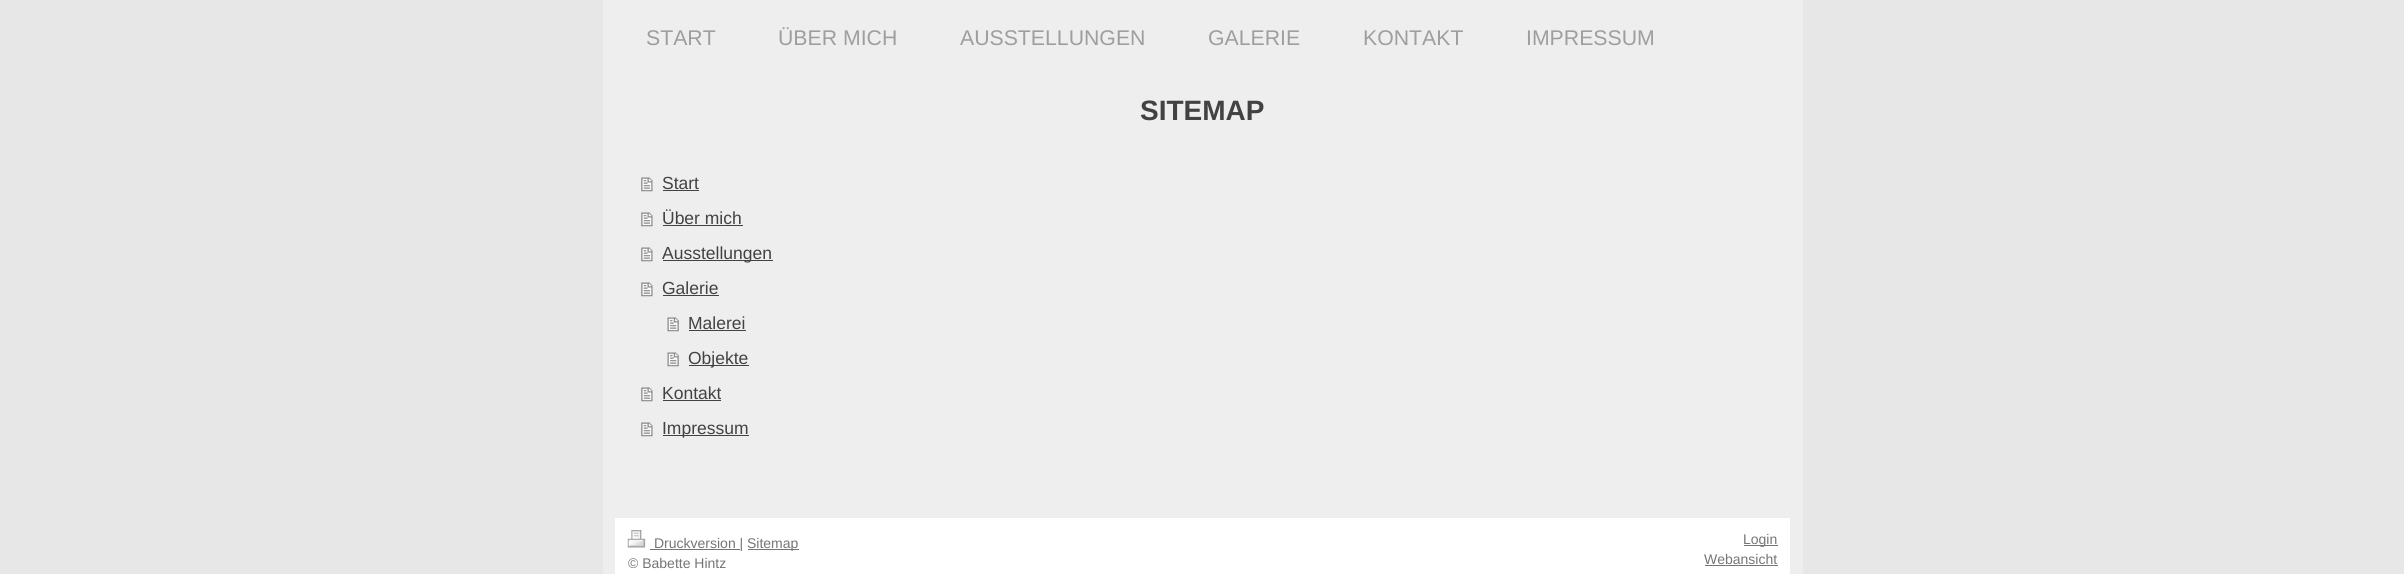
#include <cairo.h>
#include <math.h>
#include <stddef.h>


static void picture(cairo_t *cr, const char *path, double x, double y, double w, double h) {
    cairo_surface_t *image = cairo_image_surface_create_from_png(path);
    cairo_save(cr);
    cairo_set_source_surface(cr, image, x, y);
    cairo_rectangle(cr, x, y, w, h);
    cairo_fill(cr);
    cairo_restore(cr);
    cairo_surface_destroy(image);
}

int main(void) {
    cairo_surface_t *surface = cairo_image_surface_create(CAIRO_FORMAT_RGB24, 2404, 574);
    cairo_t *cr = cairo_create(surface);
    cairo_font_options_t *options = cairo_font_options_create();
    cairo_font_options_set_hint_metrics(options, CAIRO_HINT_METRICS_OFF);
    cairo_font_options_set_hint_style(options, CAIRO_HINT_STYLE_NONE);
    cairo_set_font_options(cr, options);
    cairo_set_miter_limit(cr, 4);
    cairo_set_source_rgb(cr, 0.906, 0.906, 0.906);
    cairo_paint(cr);
    cairo_set_source_rgb(cr, 0.933, 0.933, 0.933);
    cairo_rectangle(cr, 603, 0, 1200, 574);
    cairo_fill(cr);
    cairo_select_font_face(cr, "Liberation Sans", CAIRO_FONT_SLANT_NORMAL, CAIRO_FONT_WEIGHT_NORMAL);
    cairo_set_font_size(cr, 21.25);
    cairo_set_source_rgb(cr, 0.62, 0.62, 0.62);
    cairo_move_to(cr, 646, 45);
    cairo_show_text(cr, "START");
    cairo_move_to(cr, 778, 45);
    cairo_show_text(cr, "ÜBER MICH");
    cairo_move_to(cr, 960, 45);
    cairo_show_text(cr, "AUSSTELLUNGEN");
    cairo_move_to(cr, 1208, 45);
    cairo_show_text(cr, "GALERIE");
    cairo_move_to(cr, 1363, 45);
    cairo_show_text(cr, "KONTAKT");
    cairo_move_to(cr, 1526, 45);
    cairo_show_text(cr, "IMPRESSUM");
    cairo_select_font_face(cr, "Liberation Sans", CAIRO_FONT_SLANT_NORMAL, CAIRO_FONT_WEIGHT_BOLD);
    cairo_set_font_size(cr, 28);
    cairo_set_source_rgb(cr, 0.259, 0.259, 0.259);
    cairo_move_to(cr, 1140, 120);
    cairo_show_text(cr, "SITEMAP");
    picture(cr, "img1.png", 641, 177, 12, 15);
    cairo_select_font_face(cr, "Liberation Sans", CAIRO_FONT_SLANT_NORMAL, CAIRO_FONT_WEIGHT_NORMAL);
    cairo_set_font_size(cr, 17.5);
    cairo_move_to(cr, 662, 189);
    cairo_show_text(cr, "Start");
    cairo_rectangle(cr, 663, 190, 36, 1);
    cairo_fill(cr);
    picture(cr, "img1.png", 641, 212, 12, 15);
    cairo_move_to(cr, 662, 224);
    cairo_show_text(cr, "Über mich");
    cairo_rectangle(cr, 663, 225, 80, 1);
    cairo_fill(cr);
    picture(cr, "img1.png", 641, 247, 12, 15);
    cairo_rectangle(cr, 663, 260, 110, 1);
    cairo_fill(cr);
    cairo_move_to(cr, 662, 259);
    cairo_show_text(cr, "Ausstellungen");
    picture(cr, "img1.png", 641, 282, 12, 15);
    cairo_move_to(cr, 662, 294);
    cairo_show_text(cr, "Galerie");
    cairo_rectangle(cr, 663, 295, 56, 1);
    cairo_fill(cr);
    picture(cr, "img2.png", 667, 317, 12, 15);
    cairo_move_to(cr, 688, 329);
    cairo_show_text(cr, "Malerei");
    cairo_rectangle(cr, 689, 330, 57, 1);
    cairo_fill(cr);
    picture(cr, "img2.png", 667, 352, 12, 15);
    cairo_rectangle(cr, 689, 365, 60, 1);
    cairo_fill(cr);
    cairo_move_to(cr, 688, 364);
    cairo_show_text(cr, "Objekte");
    picture(cr, "img1.png", 641, 387, 12, 15);
    cairo_move_to(cr, 662, 399);
    cairo_show_text(cr, "Kontakt");
    cairo_rectangle(cr, 663, 400, 58, 1);
    cairo_fill(cr);
    picture(cr, "img1.png", 641, 422, 12, 15);
    cairo_rectangle(cr, 663, 435, 86, 1);
    cairo_fill(cr);
    cairo_move_to(cr, 662, 434);
    cairo_show_text(cr, "Impressum");
    cairo_set_source_rgb(cr, 1, 1, 1);
    cairo_rectangle(cr, 615, 518, 1175, 56);
    cairo_fill(cr);
    picture(cr, "img3.png", 627, 530, 19, 18);
    cairo_set_source_rgb(cr, 0.459, 0.459, 0.459);
    cairo_rectangle(cr, 650, 549, 90, 1);
    cairo_fill(cr);
    cairo_set_font_size(cr, 14);
    cairo_move_to(cr, 654, 548);
    cairo_show_text(cr, "Druckversion |");
    cairo_rectangle(cr, 748, 549, 51, 1);
    cairo_fill(cr);
    cairo_move_to(cr, 747, 548);
    cairo_show_text(cr, "Sitemap");
    cairo_save(cr);
    cairo_rectangle(cr, 628, 530, 1150, 44);
    cairo_clip(cr);
    cairo_move_to(cr, 628, 568);
    cairo_show_text(cr, "© Babette Hintz");
    cairo_restore(cr);
    cairo_rectangle(cr, 1744, 545, 34, 1);
    cairo_fill(cr);
    cairo_move_to(cr, 1743, 544);
    cairo_show_text(cr, "Login");
    cairo_move_to(cr, 1704, 564);
    cairo_show_text(cr, "Webansicht");
    cairo_rectangle(cr, 1705, 565, 73, 1);
    cairo_fill(cr);
    cairo_surface_write_to_png(surface, "page.png");
    cairo_font_options_destroy(options);
    cairo_destroy(cr);
    cairo_surface_destroy(surface);
    return 0;
}
